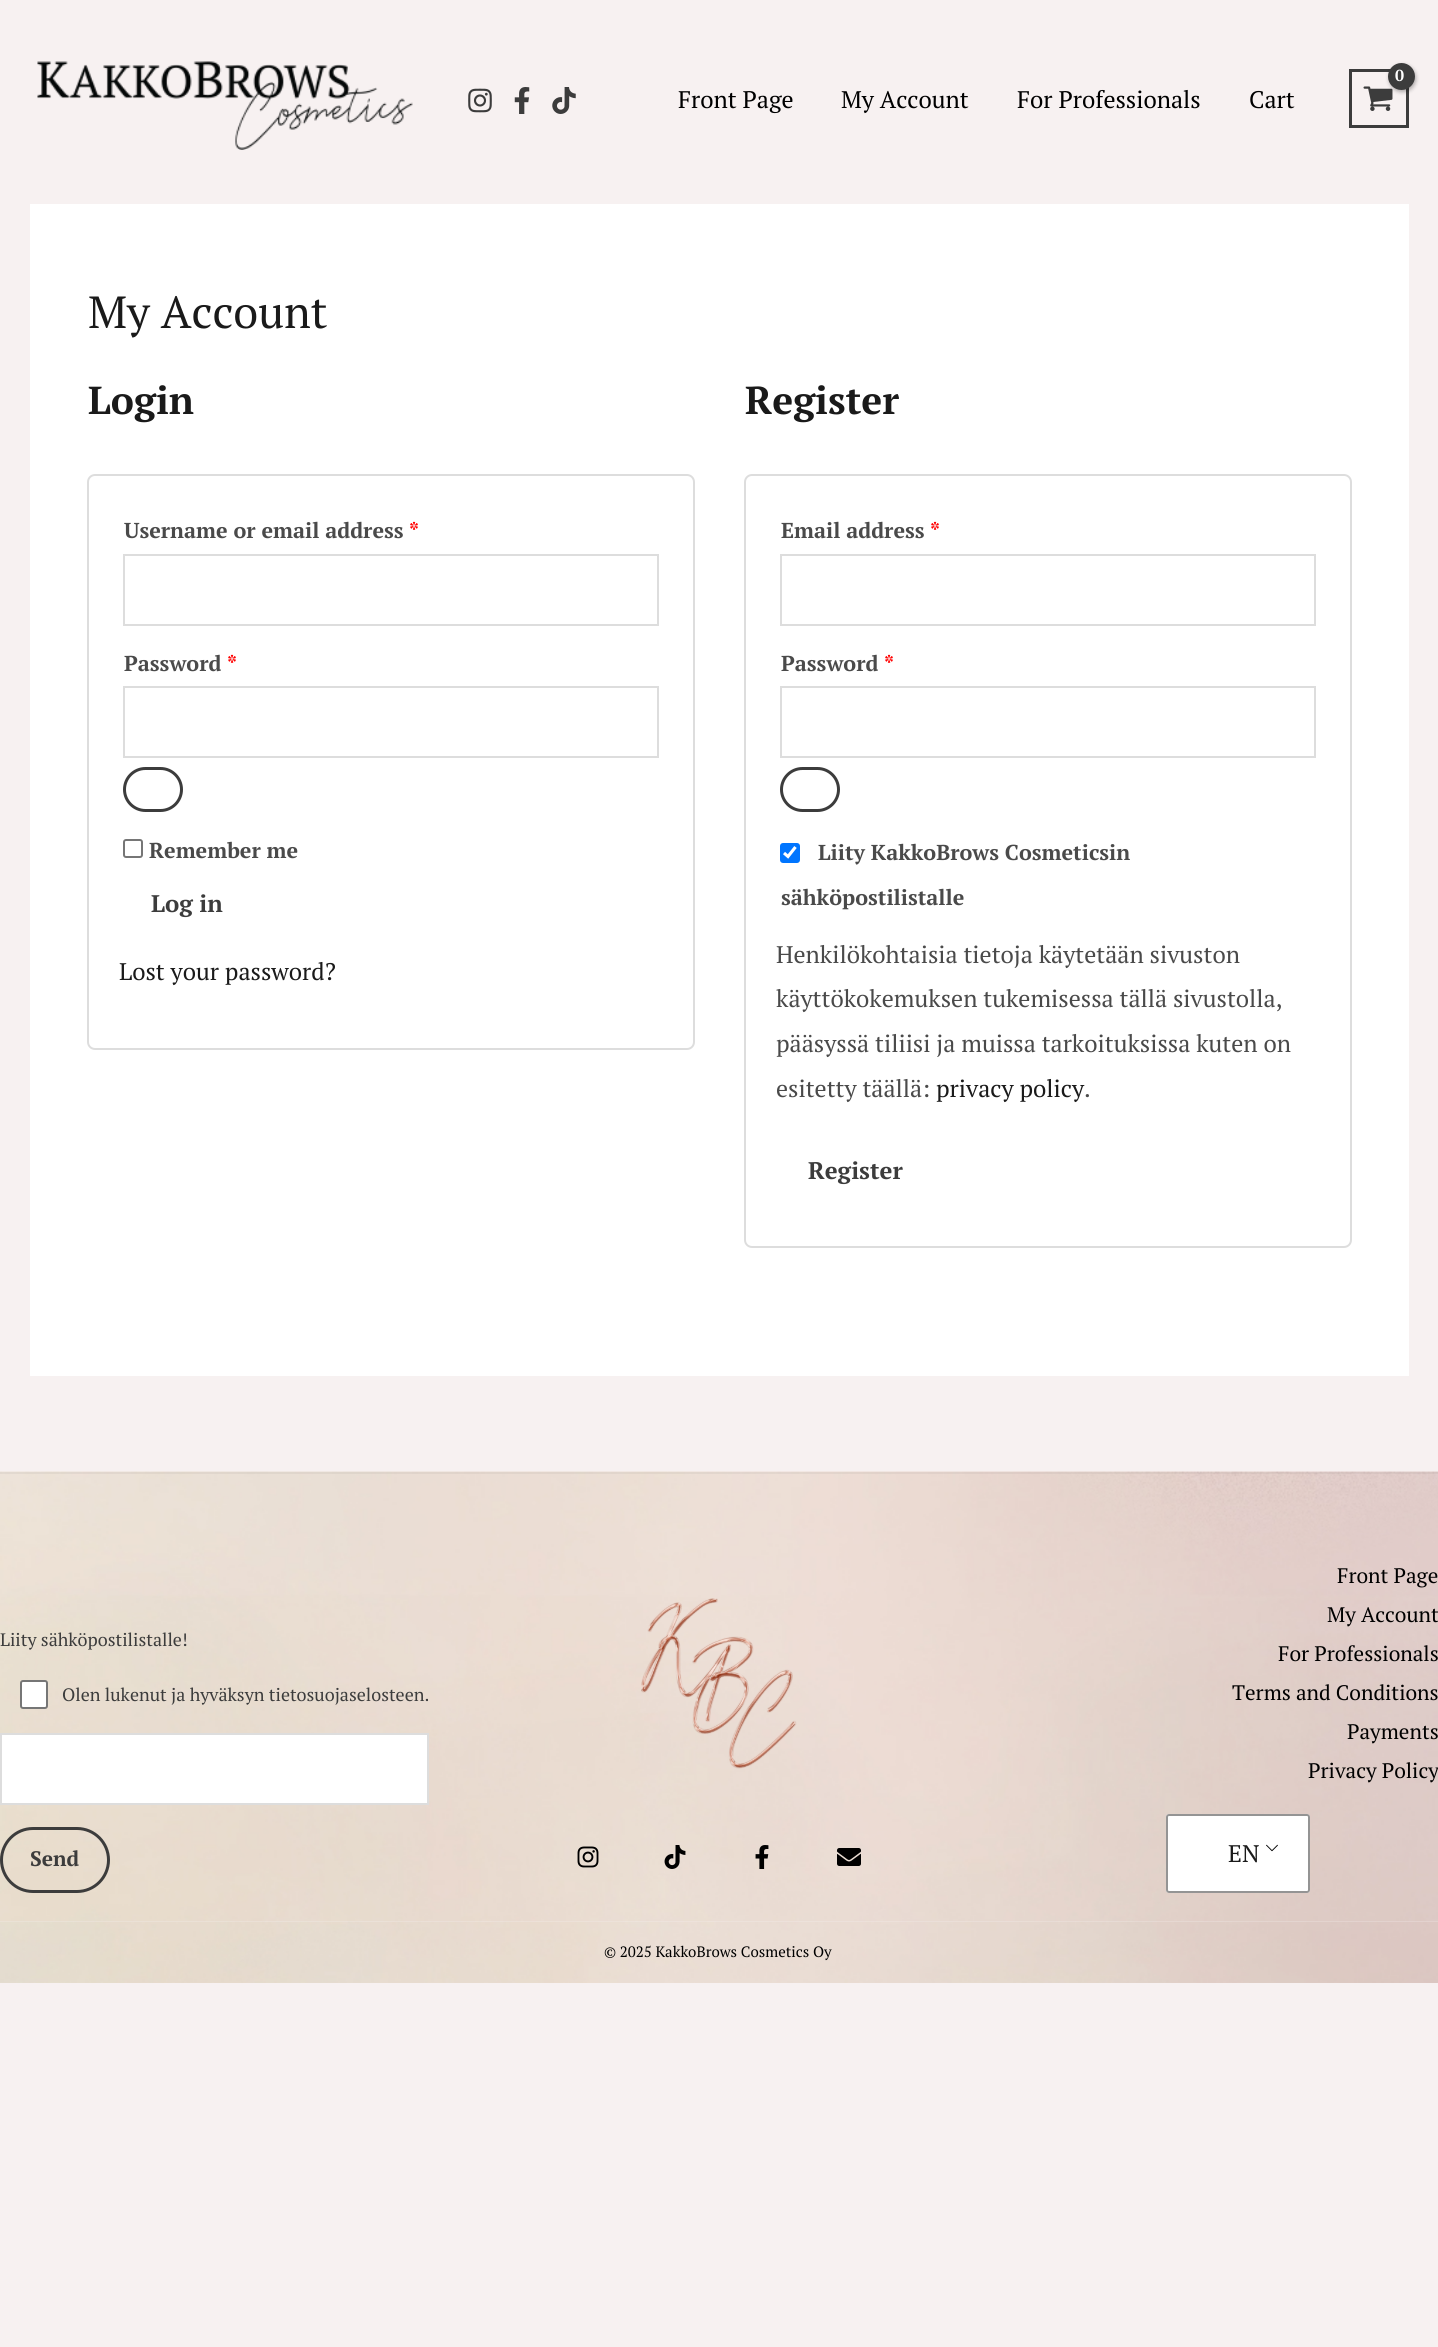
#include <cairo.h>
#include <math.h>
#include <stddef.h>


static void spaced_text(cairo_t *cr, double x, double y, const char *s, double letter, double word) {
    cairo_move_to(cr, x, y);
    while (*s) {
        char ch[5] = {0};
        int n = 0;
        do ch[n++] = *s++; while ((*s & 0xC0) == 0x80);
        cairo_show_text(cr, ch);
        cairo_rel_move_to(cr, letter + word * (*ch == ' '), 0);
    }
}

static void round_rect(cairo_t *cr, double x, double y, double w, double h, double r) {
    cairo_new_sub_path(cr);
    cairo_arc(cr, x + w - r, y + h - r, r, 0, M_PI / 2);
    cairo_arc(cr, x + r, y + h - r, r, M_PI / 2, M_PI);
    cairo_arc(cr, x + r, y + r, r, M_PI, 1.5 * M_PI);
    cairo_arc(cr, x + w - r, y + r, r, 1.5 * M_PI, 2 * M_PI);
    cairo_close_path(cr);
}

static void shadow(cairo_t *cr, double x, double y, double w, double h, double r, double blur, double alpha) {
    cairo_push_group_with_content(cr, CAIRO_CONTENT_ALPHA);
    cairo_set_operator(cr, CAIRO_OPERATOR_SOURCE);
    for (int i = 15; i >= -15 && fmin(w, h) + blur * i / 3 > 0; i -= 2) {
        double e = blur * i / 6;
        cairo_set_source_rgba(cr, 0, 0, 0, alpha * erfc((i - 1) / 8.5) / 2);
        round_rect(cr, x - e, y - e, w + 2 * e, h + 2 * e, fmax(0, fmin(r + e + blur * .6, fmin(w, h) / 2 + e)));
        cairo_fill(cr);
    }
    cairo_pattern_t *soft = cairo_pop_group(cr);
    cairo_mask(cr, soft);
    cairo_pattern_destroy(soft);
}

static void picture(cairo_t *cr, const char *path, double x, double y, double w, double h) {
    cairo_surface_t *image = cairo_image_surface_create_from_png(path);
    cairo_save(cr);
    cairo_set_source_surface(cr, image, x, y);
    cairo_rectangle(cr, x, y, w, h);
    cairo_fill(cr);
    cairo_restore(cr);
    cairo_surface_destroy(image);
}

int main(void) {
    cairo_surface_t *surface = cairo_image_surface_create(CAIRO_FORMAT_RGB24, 1438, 2347);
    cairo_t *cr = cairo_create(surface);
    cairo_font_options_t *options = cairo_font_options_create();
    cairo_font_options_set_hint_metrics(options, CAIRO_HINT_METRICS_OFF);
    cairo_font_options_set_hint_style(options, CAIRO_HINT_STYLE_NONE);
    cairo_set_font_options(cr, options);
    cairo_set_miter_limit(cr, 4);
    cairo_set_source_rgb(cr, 0.965, 0.945, 0.945);
    cairo_paint(cr);
    picture(cr, "img1.png", 37, 61, 376, 89);
    picture(cr, "img2.png", 468, 88, 24, 25);
    picture(cr, "img3.png", 514, 87, 16, 27);
    picture(cr, "img4.png", 552, 87, 24, 27);
    cairo_rectangle(cr, 1350.5, 70.5, 57, 56);
    cairo_set_source_rgb(cr, 0.235, 0.235, 0.235);
    cairo_set_line_width(cr, 3);
    cairo_stroke(cr);
    picture(cr, "img5.png", 1363, 86, 30, 25);
    cairo_set_source_rgb(cr, 0, 0, 0);
    shadow(cr, 1389, 65, 27, 27, 13.5, 2, 0.3);
    cairo_set_source_rgb(cr, 0.235, 0.235, 0.235);
    cairo_arc(cr, 1401.5, 76.5, 13.5, 0, 2 * M_PI);
    cairo_fill(cr);
    cairo_select_font_face(cr, "PT Serif", CAIRO_FONT_SLANT_NORMAL, CAIRO_FONT_WEIGHT_BOLD);
    cairo_set_font_size(cr, 16);
    cairo_set_source_rgb(cr, 1, 1, 1);
    spaced_text(cr, 1395, 81, "0", -1, 0);
    cairo_select_font_face(cr, "PT Serif", CAIRO_FONT_SLANT_NORMAL, CAIRO_FONT_WEIGHT_NORMAL);
    cairo_set_font_size(cr, 24);
    cairo_set_source_rgb(cr, 0, 0, 0);
    cairo_move_to(cr, 678, 108);
    cairo_show_text(cr, "Front Page");
    cairo_move_to(cr, 841, 108);
    cairo_show_text(cr, "My Account");
    cairo_move_to(cr, 1017, 108);
    cairo_show_text(cr, "For Professionals");
    cairo_move_to(cr, 1249, 108);
    cairo_show_text(cr, "Cart");
    cairo_set_source_rgb(cr, 1, 1, 1);
    cairo_rectangle(cr, 30, 204, 1379, 1172);
    cairo_fill(cr);
    cairo_set_font_size(cr, 45);
    cairo_set_source_rgb(cr, 0.102, 0.102, 0.102);
    cairo_move_to(cr, 88, 328);
    cairo_show_text(cr, "My Account");
    cairo_select_font_face(cr, "PT Serif", CAIRO_FONT_SLANT_NORMAL, CAIRO_FONT_WEIGHT_BOLD);
    cairo_set_font_size(cr, 39);
    cairo_move_to(cr, 88, 414);
    cairo_show_text(cr, "Login");
    round_rect(cr, 88, 475, 606, 574, 7);
    cairo_set_source_rgb(cr, 0.867, 0.867, 0.867);
    cairo_set_line_width(cr, 2);
    cairo_stroke(cr);
    cairo_set_font_size(cr, 21.6);
    cairo_set_source_rgb(cr, 0.29, 0.29, 0.29);
    cairo_move_to(cr, 124, 538);
    cairo_show_text(cr, "Username or email address");
    cairo_set_source_rgb(cr, 1, 0, 0);
    cairo_move_to(cr, 409, 538);
    cairo_show_text(cr, "*");
    cairo_rectangle(cr, 124, 555, 534, 70);
    cairo_set_source_rgb(cr, 0.867, 0.867, 0.867);
    cairo_stroke(cr);
    cairo_set_source_rgb(cr, 0.29, 0.29, 0.29);
    cairo_move_to(cr, 124, 671);
    cairo_show_text(cr, "Password");
    cairo_set_source_rgb(cr, 1, 0, 0);
    cairo_move_to(cr, 227, 671);
    cairo_show_text(cr, "*");
    cairo_rectangle(cr, 124, 687, 534, 70);
    cairo_set_source_rgb(cr, 0.867, 0.867, 0.867);
    cairo_stroke(cr);
    round_rect(cr, 124.5, 768.5, 57, 42, 21);
    cairo_set_source_rgb(cr, 0.235, 0.235, 0.235);
    cairo_set_line_width(cr, 3);
    cairo_stroke(cr);
    round_rect(cr, 124, 840, 18, 17, 2);
    cairo_set_source_rgb(cr, 0.463, 0.463, 0.463);
    cairo_set_line_width(cr, 2);
    cairo_stroke(cr);
    cairo_set_source_rgb(cr, 0.29, 0.29, 0.29);
    cairo_move_to(cr, 149, 858);
    cairo_show_text(cr, "Remember me");
    cairo_set_font_size(cr, 24);
    cairo_set_source_rgb(cr, 0.235, 0.235, 0.235);
    cairo_move_to(cr, 151, 912);
    cairo_show_text(cr, "Log in");
    cairo_select_font_face(cr, "PT Serif", CAIRO_FONT_SLANT_NORMAL, CAIRO_FONT_WEIGHT_NORMAL);
    cairo_set_source_rgb(cr, 0.102, 0.102, 0.102);
    cairo_move_to(cr, 119, 980);
    cairo_show_text(cr, "Lost your password?");
    cairo_select_font_face(cr, "PT Serif", CAIRO_FONT_SLANT_NORMAL, CAIRO_FONT_WEIGHT_BOLD);
    cairo_set_font_size(cr, 39);
    cairo_move_to(cr, 745, 414);
    cairo_show_text(cr, "Register");
    round_rect(cr, 745, 475, 606, 772, 7);
    cairo_set_source_rgb(cr, 0.867, 0.867, 0.867);
    cairo_stroke(cr);
    cairo_set_font_size(cr, 21.6);
    cairo_set_source_rgb(cr, 0.29, 0.29, 0.29);
    cairo_move_to(cr, 781, 538);
    cairo_show_text(cr, "Email address");
    cairo_set_source_rgb(cr, 1, 0, 0);
    cairo_move_to(cr, 930, 538);
    cairo_show_text(cr, "*");
    cairo_rectangle(cr, 781, 555, 534, 70);
    cairo_set_source_rgb(cr, 0.867, 0.867, 0.867);
    cairo_stroke(cr);
    cairo_set_source_rgb(cr, 0.29, 0.29, 0.29);
    cairo_move_to(cr, 781, 671);
    cairo_show_text(cr, "Password");
    cairo_set_source_rgb(cr, 1, 0, 0);
    cairo_move_to(cr, 884, 671);
    cairo_show_text(cr, "*");
    cairo_rectangle(cr, 781, 687, 534, 70);
    cairo_set_source_rgb(cr, 0.867, 0.867, 0.867);
    cairo_stroke(cr);
    round_rect(cr, 781.5, 768.5, 57, 42, 21);
    cairo_set_source_rgb(cr, 0.235, 0.235, 0.235);
    cairo_set_line_width(cr, 3);
    cairo_stroke(cr);
    cairo_set_source_rgb(cr, 0, 0.459, 1);
    round_rect(cr, 780, 843, 20, 20, 3);
    cairo_fill(cr);
    cairo_new_path(cr);
    cairo_move_to(cr, 784, 853);
    cairo_line_to(cr, 788, 856.5);
    cairo_line_to(cr, 795.5, 847);
    cairo_set_source_rgb(cr, 1, 1, 1);
    cairo_set_line_width(cr, 3.1);
    cairo_stroke(cr);
    cairo_set_source_rgb(cr, 0.29, 0.29, 0.29);
    cairo_move_to(cr, 818, 860);
    cairo_show_text(cr, "Liity KakkoBrows Cosmeticsin");
    cairo_move_to(cr, 781, 905);
    cairo_show_text(cr, "sähköpostilistalle");
    cairo_select_font_face(cr, "PT Serif", CAIRO_FONT_SLANT_NORMAL, CAIRO_FONT_WEIGHT_NORMAL);
    cairo_set_font_size(cr, 24);
    cairo_move_to(cr, 776, 963);
    cairo_show_text(cr, "Henkilökohtaisia tietoja käytetään sivuston");
    cairo_move_to(cr, 776, 1007);
    cairo_show_text(cr, "käyttökokemuksen tukemisessa tällä sivustolla,");
    cairo_move_to(cr, 776, 1052);
    cairo_show_text(cr, "pääsyssä tiliisi ja muissa tarkoituksissa kuten on");
    cairo_move_to(cr, 776, 1097);
    cairo_show_text(cr, "esitetty täällä:");
    cairo_set_source_rgb(cr, 0.102, 0.102, 0.102);
    cairo_move_to(cr, 936, 1097);
    cairo_show_text(cr, "privacy policy");
    cairo_set_source_rgb(cr, 0.29, 0.29, 0.29);
    cairo_move_to(cr, 1084, 1097);
    cairo_show_text(cr, ".");
    cairo_select_font_face(cr, "PT Serif", CAIRO_FONT_SLANT_NORMAL, CAIRO_FONT_WEIGHT_BOLD);
    cairo_set_source_rgb(cr, 0.235, 0.235, 0.235);
    cairo_move_to(cr, 808, 1179);
    cairo_show_text(cr, "Register");
    picture(cr, "img6.png", 0, 1471, 1438, 451);
    cairo_set_source_rgba(cr, 0.4, 0.4, 0.4, 0.08);
    cairo_rectangle(cr, 0, 1472, 1438, 2);
    cairo_fill(cr);
    cairo_select_font_face(cr, "PT Serif", CAIRO_FONT_SLANT_NORMAL, CAIRO_FONT_WEIGHT_NORMAL);
    cairo_set_font_size(cr, 18);
    cairo_set_source_rgb(cr, 0.235, 0.235, 0.235);
    cairo_move_to(cr, 0, 1646);
    cairo_show_text(cr, "Liity sähköpostilistalle!");
    cairo_set_source_rgb(cr, 1, 1, 1);
    round_rect(cr, 21, 1681, 26, 27, 2);
    cairo_fill_preserve(cr);
    cairo_set_source_rgb(cr, 0.463, 0.463, 0.463);
    cairo_set_line_width(cr, 2);
    cairo_stroke(cr);
    cairo_set_source_rgb(cr, 0.235, 0.235, 0.235);
    cairo_move_to(cr, 62, 1701);
    cairo_show_text(cr, "Olen lukenut ja hyväksyn tietosuojaselosteen.");
    cairo_set_source_rgb(cr, 1, 1, 1);
    cairo_rectangle(cr, 1, 1734, 427, 70);
    cairo_fill_preserve(cr);
    cairo_set_source_rgb(cr, 0.867, 0.867, 0.867);
    cairo_stroke(cr);
    round_rect(cr, 1.5, 1828.5, 107, 63, 31.5);
    cairo_set_source_rgb(cr, 0.235, 0.235, 0.235);
    cairo_set_line_width(cr, 3);
    cairo_stroke(cr);
    cairo_select_font_face(cr, "PT Serif", CAIRO_FONT_SLANT_NORMAL, CAIRO_FONT_WEIGHT_BOLD);
    cairo_set_font_size(cr, 21);
    cairo_move_to(cr, 30, 1866);
    cairo_show_text(cr, "Send");
    picture(cr, "img7.png", 641, 1598, 156, 171);
    picture(cr, "img8.png", 577, 1846, 22, 22);
    picture(cr, "img9.png", 664, 1845, 22, 24);
    picture(cr, "img10.png", 755, 1845, 14, 24);
    picture(cr, "img11.png", 837, 1848, 24, 18);
    cairo_select_font_face(cr, "PT Serif", CAIRO_FONT_SLANT_NORMAL, CAIRO_FONT_WEIGHT_NORMAL);
    cairo_set_source_rgb(cr, 0, 0, 0);
    cairo_move_to(cr, 1337, 1583);
    cairo_show_text(cr, "Front Page");
    cairo_move_to(cr, 1327, 1622);
    cairo_show_text(cr, "My Account");
    cairo_move_to(cr, 1278, 1661);
    cairo_show_text(cr, "For Professionals");
    cairo_move_to(cr, 1232, 1700);
    cairo_show_text(cr, "Terms and Conditions");
    cairo_move_to(cr, 1347, 1739);
    cairo_show_text(cr, "Payments");
    cairo_move_to(cr, 1308, 1778);
    cairo_show_text(cr, "Privacy Policy");
    cairo_set_source_rgb(cr, 1, 1, 1);
    round_rect(cr, 1166, 1814, 144, 79, 3);
    cairo_fill(cr);
    picture(cr, "img12.png", 1266, 1844, 12, 8);
    round_rect(cr, 1167, 1815, 142, 77, 2);
    cairo_set_source_rgb(cr, 0.58, 0.58, 0.58);
    cairo_set_line_width(cr, 2);
    cairo_stroke(cr);
    cairo_set_font_size(cr, 24);
    cairo_set_source_rgb(cr, 0.102, 0.102, 0.102);
    cairo_move_to(cr, 1228, 1862);
    cairo_show_text(cr, "EN");
    picture(cr, "img13.png", 0, 1921, 1438, 62);
    cairo_set_font_size(cr, 15);
    cairo_set_source_rgb(cr, 0, 0, 0);
    cairo_move_to(cr, 604, 1957);
    cairo_show_text(cr, "© 2025 KakkoBrows Cosmetics Oy");
    cairo_surface_write_to_png(surface, "page.png");
    cairo_font_options_destroy(options);
    cairo_destroy(cr);
    cairo_surface_destroy(surface);
    return 0;
}
